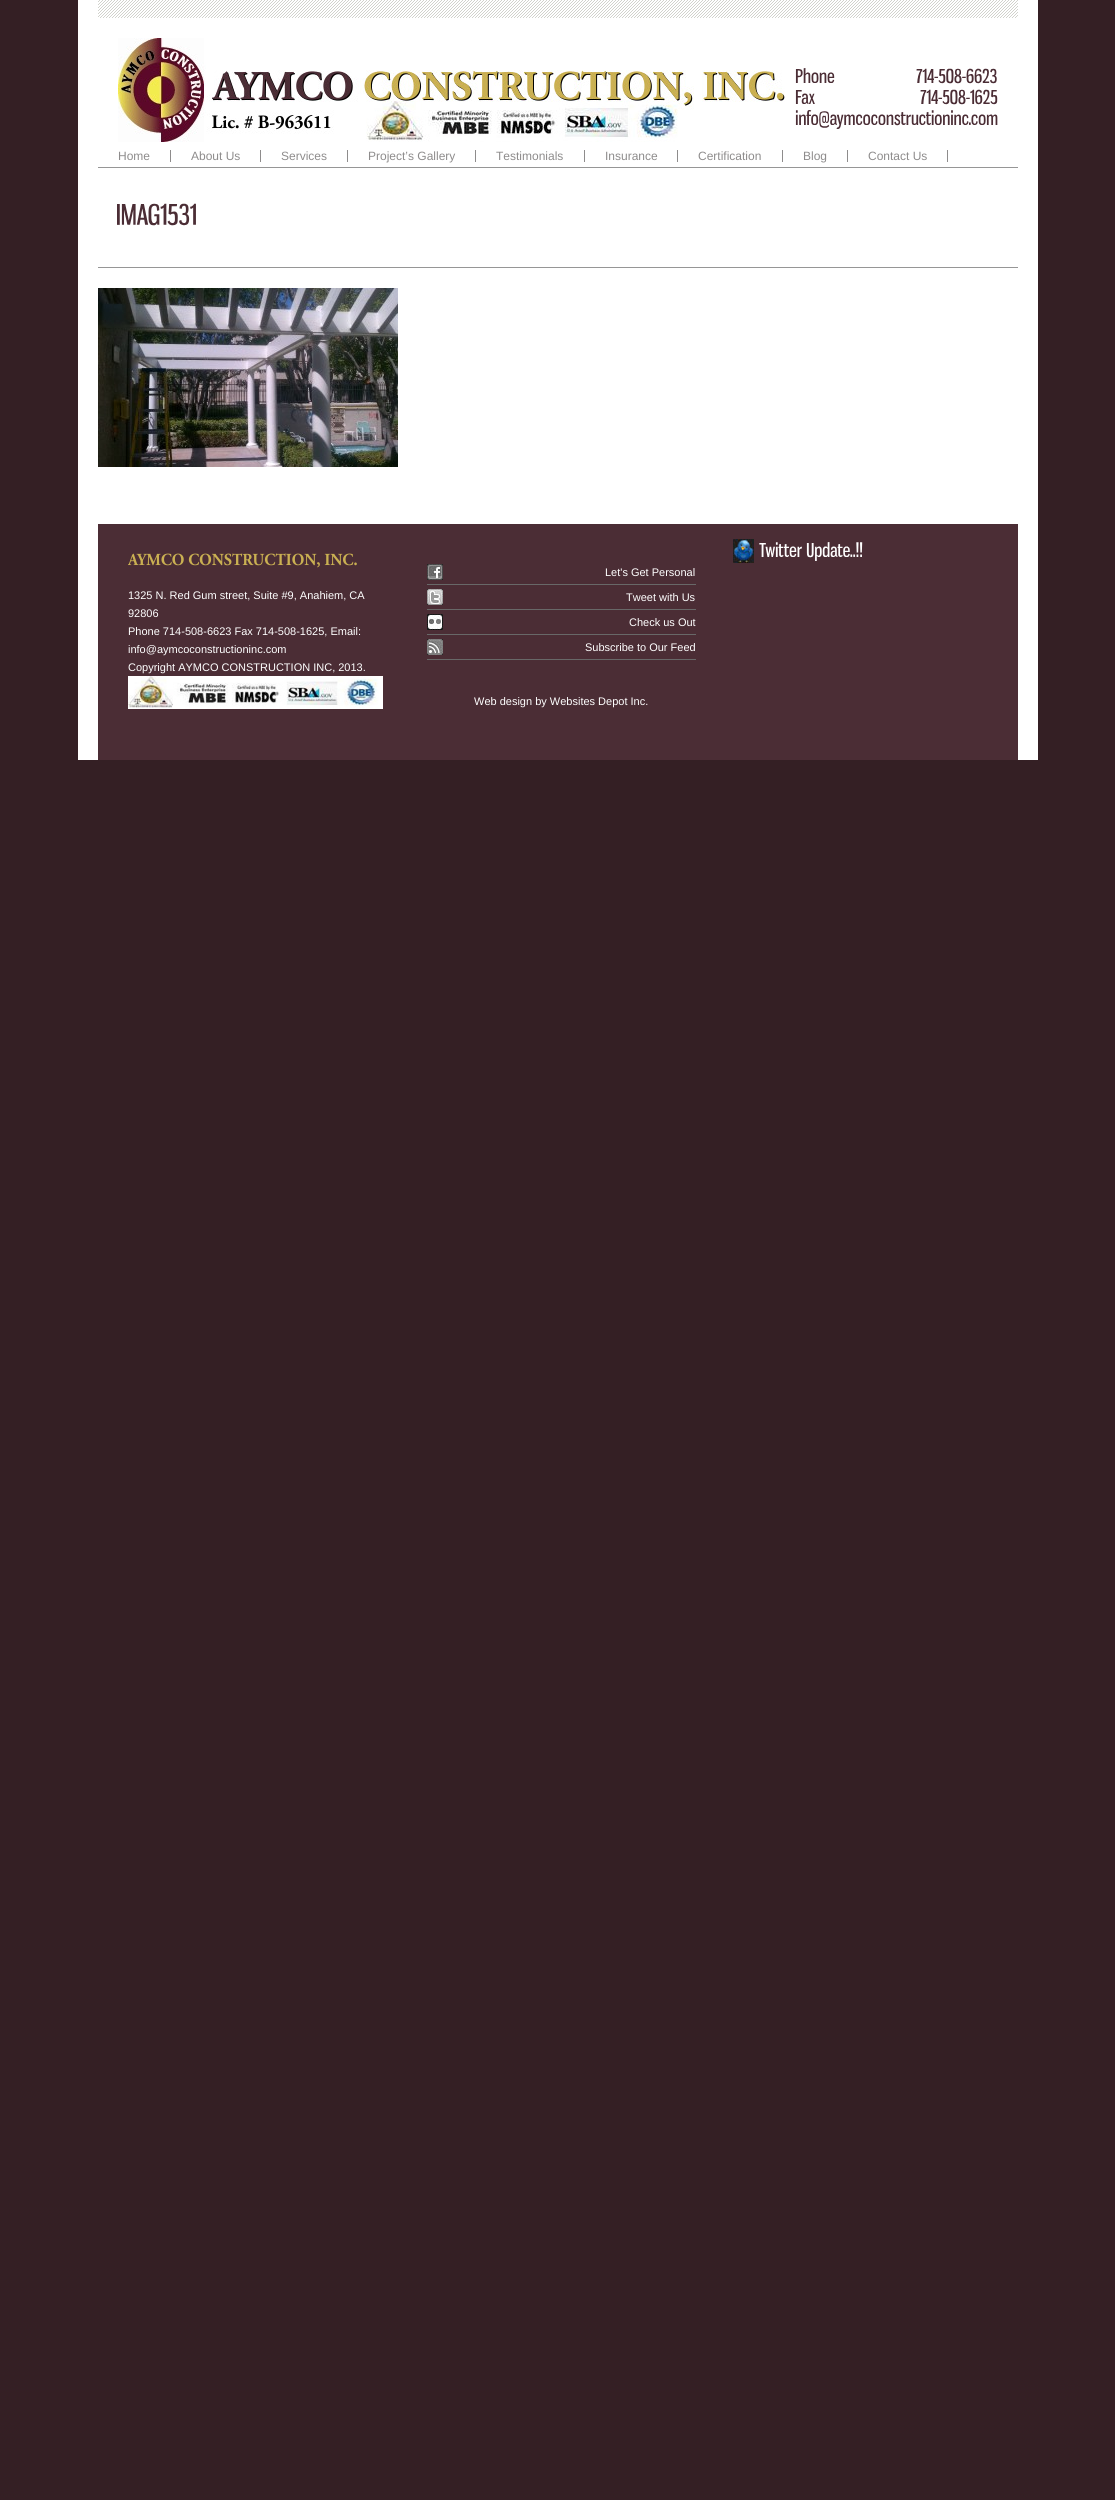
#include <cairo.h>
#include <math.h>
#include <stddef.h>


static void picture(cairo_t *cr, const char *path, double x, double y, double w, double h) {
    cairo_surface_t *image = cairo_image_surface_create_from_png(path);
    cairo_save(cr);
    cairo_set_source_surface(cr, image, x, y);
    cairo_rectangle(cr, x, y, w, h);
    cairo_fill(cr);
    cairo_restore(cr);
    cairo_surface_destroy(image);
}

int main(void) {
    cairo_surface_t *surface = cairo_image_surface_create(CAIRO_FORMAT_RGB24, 1115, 2500);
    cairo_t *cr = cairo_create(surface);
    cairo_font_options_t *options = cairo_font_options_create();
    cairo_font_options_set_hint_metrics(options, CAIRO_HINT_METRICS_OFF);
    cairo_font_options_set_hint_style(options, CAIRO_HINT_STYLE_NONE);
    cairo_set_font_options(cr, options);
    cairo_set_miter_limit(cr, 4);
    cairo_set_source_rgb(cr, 0.204, 0.122, 0.141);
    cairo_paint(cr);
    cairo_set_source_rgb(cr, 1, 1, 1);
    cairo_rectangle(cr, 78, 0, 960, 760);
    cairo_fill(cr);
    picture(cr, "img1.png", 98, 0, 920, 18);
    picture(cr, "img2.png", 118, 38, 667, 104);
    picture(cr, "img3.png", 795, 68, 40, 15);
    picture(cr, "img4.png", 916, 68, 81, 16);
    picture(cr, "img5.png", 795, 90, 20, 14);
    picture(cr, "img6.png", 920, 89, 78, 16);
    picture(cr, "img7.png", 795, 110, 203, 19);
    cairo_set_source_rgb(cr, 0.588, 0.588, 0.588);
    cairo_rectangle(cr, 98, 167, 920, 1);
    cairo_fill(cr);
    cairo_set_source_rgb(cr, 0.557, 0.549, 0.549);
    cairo_rectangle(cr, 170, 150, 1, 12);
    cairo_fill(cr);
    cairo_select_font_face(cr, "Liberation Sans", CAIRO_FONT_SLANT_NORMAL, CAIRO_FONT_WEIGHT_NORMAL);
    cairo_set_font_size(cr, 12);
    cairo_move_to(cr, 118, 160);
    cairo_show_text(cr, "Home");
    cairo_rectangle(cr, 260, 150, 1, 12);
    cairo_fill(cr);
    cairo_move_to(cr, 191, 160);
    cairo_show_text(cr, "About Us");
    cairo_rectangle(cr, 347, 150, 1, 12);
    cairo_fill(cr);
    cairo_move_to(cr, 281, 160);
    cairo_show_text(cr, "Services");
    cairo_rectangle(cr, 475, 150, 1, 12);
    cairo_fill(cr);
    cairo_move_to(cr, 368, 160);
    cairo_show_text(cr, "Project’s Gallery");
    cairo_rectangle(cr, 584, 150, 1, 12);
    cairo_fill(cr);
    cairo_move_to(cr, 496, 160);
    cairo_show_text(cr, "Testimonials");
    cairo_rectangle(cr, 677, 150, 1, 12);
    cairo_fill(cr);
    cairo_move_to(cr, 605, 160);
    cairo_show_text(cr, "Insurance");
    cairo_rectangle(cr, 782, 150, 1, 12);
    cairo_fill(cr);
    cairo_move_to(cr, 698, 160);
    cairo_show_text(cr, "Certification");
    cairo_rectangle(cr, 847, 150, 1, 12);
    cairo_fill(cr);
    cairo_move_to(cr, 803, 160);
    cairo_show_text(cr, "Blog");
    cairo_rectangle(cr, 947, 150, 1, 12);
    cairo_fill(cr);
    cairo_move_to(cr, 868, 160);
    cairo_show_text(cr, "Contact Us");
    cairo_set_source_rgb(cr, 0.588, 0.588, 0.588);
    cairo_rectangle(cr, 98, 267, 920, 1);
    cairo_fill(cr);
    picture(cr, "img8.png", 117, 203, 79, 23);
    picture(cr, "img9.png", 98, 288, 300, 179);
    cairo_set_source_rgb(cr, 0.294, 0.176, 0.208);
    cairo_rectangle(cr, 98, 524, 920, 236);
    cairo_fill(cr);
    picture(cr, "img10.png", 733, 539, 21, 24);
    picture(cr, "img11.png", 759, 542, 43, 15);
    picture(cr, "img12.png", 806, 542, 57, 19);
    picture(cr, "img13.png", 128, 553, 229, 15);
    cairo_set_font_size(cr, 11);
    cairo_set_source_rgb(cr, 1, 1, 1);
    cairo_move_to(cr, 128, 599);
    cairo_show_text(cr, "1325 N. Red Gum street, Suite #9, Anahiem, CA");
    cairo_move_to(cr, 128, 617);
    cairo_show_text(cr, "92806");
    cairo_move_to(cr, 128, 635);
    cairo_show_text(cr, "Phone 714-508-6623 Fax 714-508-1625, Email:");
    cairo_move_to(cr, 128, 653);
    cairo_show_text(cr, "info@aymcoconstructioninc.com");
    cairo_move_to(cr, 128, 671);
    cairo_show_text(cr, "Copyright AYMCO CONSTRUCTION INC, 2013.");
    picture(cr, "img14.png", 128, 676, 255, 33);
    cairo_set_source_rgb(cr, 0.408, 0.408, 0.408);
    cairo_rectangle(cr, 427, 584, 269, 1);
    cairo_fill(cr);
    picture(cr, "img15.png", 427, 564, 16, 16);
    cairo_set_source_rgb(cr, 1, 1, 1);
    cairo_move_to(cr, 605, 576);
    cairo_show_text(cr, "Let's Get Personal");
    cairo_set_source_rgb(cr, 0.408, 0.408, 0.408);
    cairo_rectangle(cr, 427, 609, 269, 1);
    cairo_fill(cr);
    picture(cr, "img16.png", 427, 589, 16, 16);
    cairo_set_source_rgb(cr, 1, 1, 1);
    cairo_move_to(cr, 626, 601);
    cairo_show_text(cr, "Tweet with Us");
    cairo_set_source_rgb(cr, 0.408, 0.408, 0.408);
    cairo_rectangle(cr, 427, 634, 269, 1);
    cairo_fill(cr);
    picture(cr, "img17.png", 427, 614, 16, 16);
    cairo_set_source_rgb(cr, 1, 1, 1);
    cairo_move_to(cr, 629, 626);
    cairo_show_text(cr, "Check us Out");
    cairo_set_source_rgb(cr, 0.408, 0.408, 0.408);
    cairo_rectangle(cr, 427, 659, 269, 1);
    cairo_fill(cr);
    picture(cr, "img18.png", 427, 639, 16, 16);
    cairo_set_source_rgb(cr, 1, 1, 1);
    cairo_move_to(cr, 585, 651);
    cairo_show_text(cr, "Subscribe to Our Feed");
    cairo_move_to(cr, 474, 705);
    cairo_show_text(cr, "Web design by Websites Depot Inc.");
    cairo_surface_write_to_png(surface, "page.png");
    cairo_font_options_destroy(options);
    cairo_destroy(cr);
    cairo_surface_destroy(surface);
    return 0;
}
